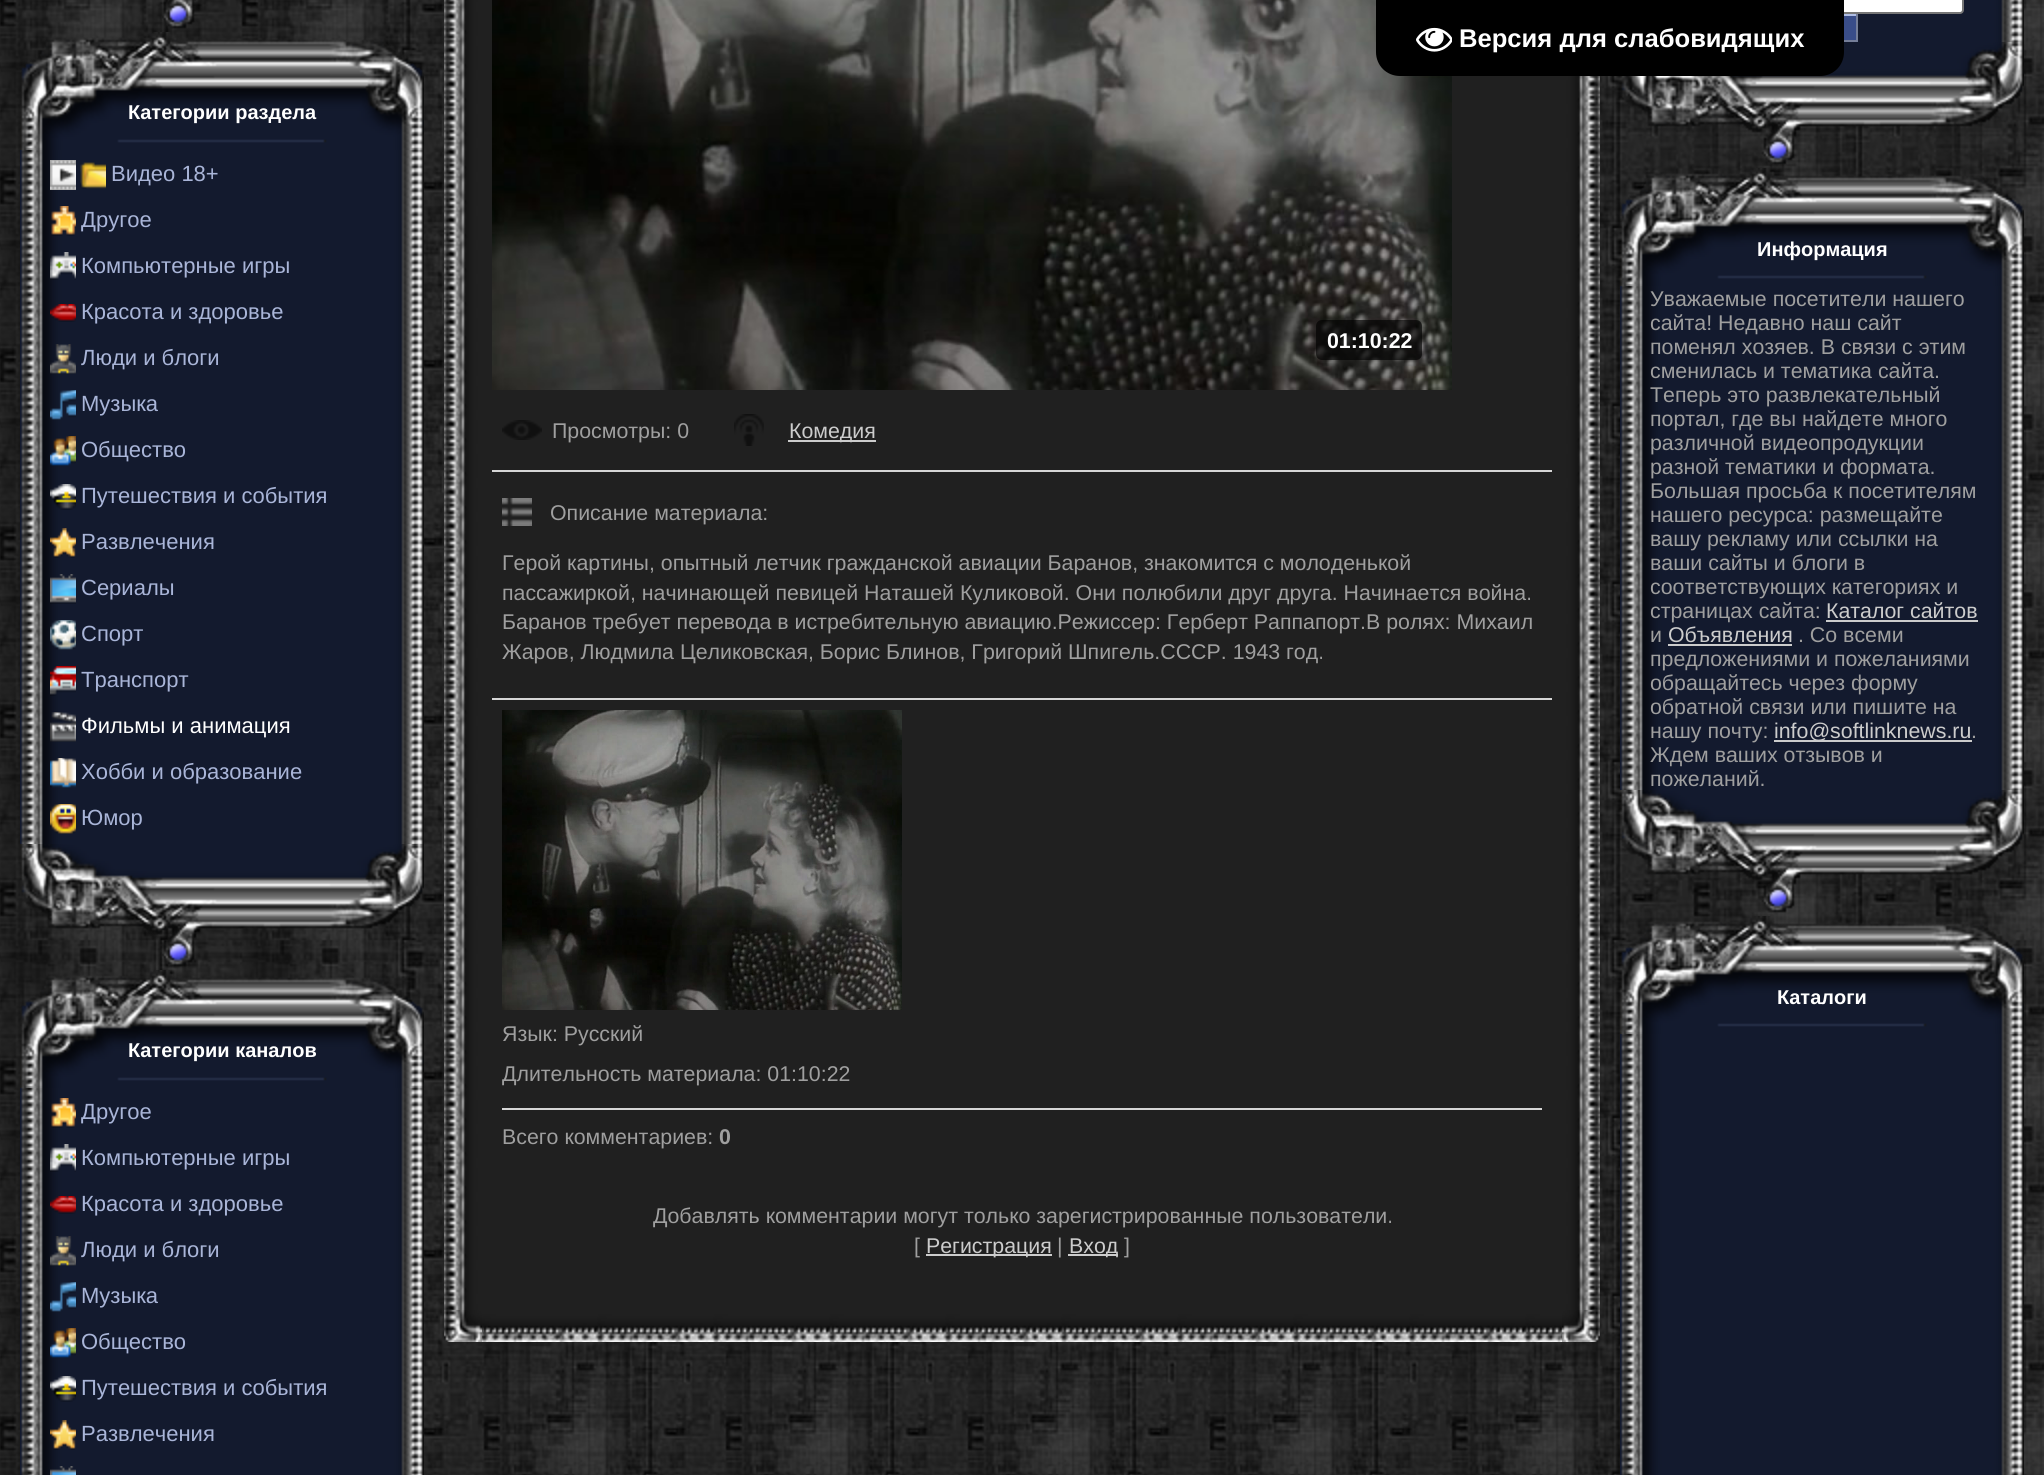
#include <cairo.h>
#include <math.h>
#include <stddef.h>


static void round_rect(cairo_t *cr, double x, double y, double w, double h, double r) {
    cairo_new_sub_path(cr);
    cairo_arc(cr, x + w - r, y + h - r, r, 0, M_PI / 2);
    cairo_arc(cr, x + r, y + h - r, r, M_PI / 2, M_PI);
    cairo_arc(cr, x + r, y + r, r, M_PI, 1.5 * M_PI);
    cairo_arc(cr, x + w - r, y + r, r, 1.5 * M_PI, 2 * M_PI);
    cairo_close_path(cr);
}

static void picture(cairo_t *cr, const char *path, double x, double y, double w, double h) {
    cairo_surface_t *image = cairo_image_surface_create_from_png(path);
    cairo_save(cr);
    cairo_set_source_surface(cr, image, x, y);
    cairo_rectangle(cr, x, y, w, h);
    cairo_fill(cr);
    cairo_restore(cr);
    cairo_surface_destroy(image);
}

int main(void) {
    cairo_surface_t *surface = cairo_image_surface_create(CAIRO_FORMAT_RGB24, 2044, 1475);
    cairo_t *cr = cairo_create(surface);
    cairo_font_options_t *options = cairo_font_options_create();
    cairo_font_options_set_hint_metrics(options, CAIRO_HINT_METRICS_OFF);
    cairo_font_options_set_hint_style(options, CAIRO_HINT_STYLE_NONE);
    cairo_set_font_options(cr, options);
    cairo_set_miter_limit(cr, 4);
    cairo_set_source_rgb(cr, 1, 1, 1);
    cairo_paint(cr);
    picture(cr, "img1.png", 0, 0, 2044, 1475);
    cairo_set_source_rgb(cr, 0.125, 0.125, 0.125);
    cairo_rectangle(cr, 482, 0, 1080, 1310);
    cairo_fill(cr);
    picture(cr, "img27.png", 492, 0, 960, 390);
    picture(cr, "img36.png", 1858, 0, 166, 42);
    cairo_set_source_rgb(cr, 1, 1, 1);
    round_rect(cr, 1673, -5, 290, 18, 3);
    cairo_fill_preserve(cr);
    cairo_set_source_rgb(cr, 0.463, 0.463, 0.463);
    cairo_stroke(cr);
    picture(cr, "img37.png", 1621, 42, 403, 123);
    cairo_set_source_rgb(cr, 0, 0, 0);
    cairo_new_path(cr);
    cairo_move_to(cr, 1376, 0);
    cairo_line_to(cr, 1844, 0);
    cairo_line_to(cr, 1844, 52);
    cairo_curve_to(cr, 1844, 65.5, 1833.5, 76, 1820, 76);
    cairo_line_to(cr, 1400, 76);
    cairo_curve_to(cr, 1386.5, 76, 1376, 65.5, 1376, 52);
    cairo_close_path(cr);
    cairo_fill(cr);
    picture(cr, "img2.png", 1416, 27, 36, 25);
    cairo_select_font_face(cr, "Liberation Sans", CAIRO_FONT_SLANT_NORMAL, CAIRO_FONT_WEIGHT_BOLD);
    cairo_set_font_size(cr, 25.6);
    cairo_set_source_rgb(cr, 1, 1, 1);
    cairo_move_to(cr, 1459, 47);
    cairo_show_text(cr, "Версия для слабовидящих");
    picture(cr, "img3.png", 162, 0, 34, 29);
    picture(cr, "img4.png", 21, 32, 403, 118);
    cairo_set_font_size(cr, 20);
    cairo_move_to(cr, 128, 119);
    cairo_show_text(cr, "Категории раздела");
    cairo_set_source_rgb(cr, 0.075, 0.102, 0.18);
    cairo_rectangle(cr, 20, 150, 3, 694);
    cairo_fill(cr);
    picture(cr, "img5.png", 21, 150, 403, 694);
    picture(cr, "img6.png", 50, 160, 26, 30);
    picture(cr, "img7.png", 80, 162, 26, 27);
    cairo_select_font_face(cr, "Liberation Sans", CAIRO_FONT_SLANT_NORMAL, CAIRO_FONT_WEIGHT_NORMAL);
    cairo_set_font_size(cr, 22);
    cairo_set_source_rgb(cr, 0.663, 0.71, 0.847);
    cairo_move_to(cr, 111, 181);
    cairo_show_text(cr, "Видео 18+");
    picture(cr, "img8.png", 51, 206, 25, 30);
    cairo_move_to(cr, 81, 227);
    cairo_show_text(cr, "Другое");
    picture(cr, "img9.png", 50, 252, 26, 28);
    cairo_move_to(cr, 81, 273);
    cairo_show_text(cr, "Компьютерные игры");
    picture(cr, "img10.png", 50, 304, 26, 18);
    cairo_move_to(cr, 81, 319);
    cairo_show_text(cr, "Красота и здоровье");
    picture(cr, "img11.png", 50, 344, 26, 30);
    cairo_move_to(cr, 81, 365);
    cairo_show_text(cr, "Люди и блоги");
    picture(cr, "img12.png", 50, 390, 26, 30);
    cairo_move_to(cr, 81, 411);
    cairo_show_text(cr, "Музыка");
    picture(cr, "img13.png", 50, 436, 26, 30);
    cairo_move_to(cr, 81, 457);
    cairo_show_text(cr, "Общество");
    picture(cr, "img14.png", 50, 484, 26, 26);
    cairo_move_to(cr, 81, 503);
    cairo_show_text(cr, "Путешествия и события");
    picture(cr, "img15.png", 50, 528, 26, 30);
    cairo_move_to(cr, 81, 549);
    cairo_show_text(cr, "Развлечения");
    picture(cr, "img16.png", 50, 574, 26, 30);
    cairo_move_to(cr, 81, 595);
    cairo_show_text(cr, "Сериалы");
    picture(cr, "img17.png", 50, 620, 26, 30);
    cairo_move_to(cr, 81, 641);
    cairo_show_text(cr, "Спорт");
    picture(cr, "img18.png", 50, 666, 26, 30);
    cairo_move_to(cr, 81, 687);
    cairo_show_text(cr, "Транспорт");
    picture(cr, "img19.png", 50, 712, 26, 30);
    cairo_set_source_rgb(cr, 1, 1, 1);
    cairo_move_to(cr, 81, 733);
    cairo_show_text(cr, "Фильмы и анимация");
    picture(cr, "img20.png", 50, 758, 26, 30);
    cairo_set_source_rgb(cr, 0.663, 0.71, 0.847);
    cairo_move_to(cr, 81, 779);
    cairo_show_text(cr, "Хобби и образование");
    picture(cr, "img21.png", 50, 804, 26, 30);
    cairo_move_to(cr, 81, 825);
    cairo_show_text(cr, "Юмор");
    picture(cr, "img22.png", 21, 844, 403, 123);
    picture(cr, "img23.png", 21, 970, 403, 118);
    cairo_select_font_face(cr, "Liberation Sans", CAIRO_FONT_SLANT_NORMAL, CAIRO_FONT_WEIGHT_BOLD);
    cairo_set_font_size(cr, 20);
    cairo_set_source_rgb(cr, 1, 1, 1);
    cairo_move_to(cr, 128, 1057);
    cairo_show_text(cr, "Категории каналов");
    cairo_set_source_rgb(cr, 0.075, 0.102, 0.18);
    cairo_rectangle(cr, 20, 1088, 3, 387);
    cairo_fill(cr);
    picture(cr, "img24.png", 21, 1088, 403, 387);
    picture(cr, "img8.png", 51, 1098, 25, 30);
    cairo_select_font_face(cr, "Liberation Sans", CAIRO_FONT_SLANT_NORMAL, CAIRO_FONT_WEIGHT_NORMAL);
    cairo_set_font_size(cr, 22);
    cairo_set_source_rgb(cr, 0.663, 0.71, 0.847);
    cairo_move_to(cr, 81, 1119);
    cairo_show_text(cr, "Другое");
    picture(cr, "img9.png", 50, 1144, 26, 28);
    cairo_move_to(cr, 81, 1165);
    cairo_show_text(cr, "Компьютерные игры");
    picture(cr, "img10.png", 50, 1196, 26, 18);
    cairo_move_to(cr, 81, 1211);
    cairo_show_text(cr, "Красота и здоровье");
    picture(cr, "img11.png", 50, 1236, 26, 30);
    cairo_move_to(cr, 81, 1257);
    cairo_show_text(cr, "Люди и блоги");
    picture(cr, "img12.png", 50, 1282, 26, 30);
    cairo_move_to(cr, 81, 1303);
    cairo_show_text(cr, "Музыка");
    picture(cr, "img13.png", 50, 1328, 26, 30);
    cairo_move_to(cr, 81, 1349);
    cairo_show_text(cr, "Общество");
    picture(cr, "img14.png", 50, 1376, 26, 26);
    cairo_move_to(cr, 81, 1395);
    cairo_show_text(cr, "Путешествия и события");
    picture(cr, "img15.png", 50, 1420, 26, 30);
    cairo_move_to(cr, 81, 1441);
    cairo_show_text(cr, "Развлечения");
    picture(cr, "img25.png", 50, 1466, 26, 9);
    picture(cr, "img26.png", 444, 0, 38, 1310);
    cairo_set_source_rgba(cr, 0, 0, 0, 0.63);
    round_rect(cr, 1316, 320, 106, 40, 6);
    cairo_fill(cr);
    cairo_select_font_face(cr, "Liberation Sans", CAIRO_FONT_SLANT_NORMAL, CAIRO_FONT_WEIGHT_BOLD);
    cairo_set_font_size(cr, 21.35);
    cairo_set_source_rgb(cr, 1, 1, 1);
    cairo_move_to(cr, 1327, 348);
    cairo_show_text(cr, "01:10:22");
    picture(cr, "img28.png", 502, 420, 40, 20);
    cairo_select_font_face(cr, "Liberation Sans", CAIRO_FONT_SLANT_NORMAL, CAIRO_FONT_WEIGHT_NORMAL);
    cairo_set_source_rgb(cr, 0.624, 0.624, 0.624);
    cairo_move_to(cr, 552, 438);
    cairo_show_text(cr, "Просмотры: 0");
    picture(cr, "img29.png", 734, 414, 30, 32);
    cairo_set_source_rgb(cr, 0.8, 0.8, 0.8);
    cairo_rectangle(cr, 788, 440, 88, 2);
    cairo_fill(cr);
    cairo_move_to(cr, 789, 438);
    cairo_show_text(cr, "Комедия");
    cairo_set_source_rgb(cr, 0.839, 0.839, 0.839);
    cairo_rectangle(cr, 492, 470, 1060, 2);
    cairo_fill(cr);
    picture(cr, "img30.png", 502, 498, 30, 28);
    cairo_set_source_rgb(cr, 0.624, 0.624, 0.624);
    cairo_move_to(cr, 550, 520);
    cairo_show_text(cr, "Описание материала:");
    cairo_move_to(cr, 502, 570);
    cairo_show_text(cr, "Герой картины, опытный летчик гражданской авиации Баранов, знакомится с молоденькой");
    cairo_move_to(cr, 502, 600);
    cairo_show_text(cr, "пассажиркой, начинающей певицей Наташей Куликовой. Они полюбили друг друга. Начинается война.");
    cairo_move_to(cr, 502, 629);
    cairo_show_text(cr, "Баранов требует перевода в истребительную авиацию.Режиссер: Герберт Раппапорт.В ролях: Михаил");
    cairo_move_to(cr, 502, 659);
    cairo_show_text(cr, "Жаров, Людмила Целиковская, Борис Блинов, Григорий Шпигель.СССР. 1943 год.");
    cairo_set_source_rgb(cr, 0.839, 0.839, 0.839);
    cairo_rectangle(cr, 492, 698, 1060, 2);
    cairo_fill(cr);
    picture(cr, "img31.png", 502, 710, 400, 300);
    cairo_set_source_rgb(cr, 0.624, 0.624, 0.624);
    cairo_move_to(cr, 502, 1041);
    cairo_show_text(cr, "Язык: Русский");
    cairo_move_to(cr, 502, 1081);
    cairo_show_text(cr, "Длительность материала: 01:10:22");
    cairo_set_source_rgb(cr, 0.839, 0.839, 0.839);
    cairo_rectangle(cr, 502, 1108, 1040, 2);
    cairo_fill(cr);
    cairo_set_source_rgb(cr, 0.624, 0.624, 0.624);
    cairo_move_to(cr, 502, 1144);
    cairo_show_text(cr, "Всего комментариев:");
    cairo_select_font_face(cr, "Liberation Sans", CAIRO_FONT_SLANT_NORMAL, CAIRO_FONT_WEIGHT_BOLD);
    cairo_move_to(cr, 719, 1144);
    cairo_show_text(cr, "0");
    cairo_select_font_face(cr, "Liberation Sans", CAIRO_FONT_SLANT_NORMAL, CAIRO_FONT_WEIGHT_NORMAL);
    cairo_move_to(cr, 653, 1223);
    cairo_show_text(cr, "Добавлять комментарии могут только зарегистрированные пользователи.");
    cairo_move_to(cr, 914, 1253);
    cairo_show_text(cr, "[");
    cairo_set_source_rgb(cr, 0.8, 0.8, 0.8);
    cairo_rectangle(cr, 926, 1254, 126, 2);
    cairo_fill(cr);
    cairo_move_to(cr, 926, 1253);
    cairo_show_text(cr, "Регистрация");
    cairo_set_source_rgb(cr, 0.624, 0.624, 0.624);
    cairo_move_to(cr, 1057, 1253);
    cairo_show_text(cr, "|");
    cairo_set_source_rgb(cr, 0.8, 0.8, 0.8);
    cairo_rectangle(cr, 1068, 1254, 50, 2);
    cairo_fill(cr);
    cairo_move_to(cr, 1069, 1253);
    cairo_show_text(cr, "Вход");
    cairo_set_source_rgb(cr, 0.624, 0.624, 0.624);
    cairo_move_to(cr, 1124, 1253);
    cairo_show_text(cr, "]");
    picture(cr, "img32.png", 1562, 76, 38, 1234);
    picture(cr, "img33.png", 444, 1310, 38, 32);
    picture(cr, "img34.png", 482, 1310, 1080, 32);
    picture(cr, "img35.png", 1562, 1310, 38, 32);
    cairo_set_source_rgb(cr, 0.224, 0.302, 0.537);
    cairo_rectangle(cr, 1844, 16, 12, 24);
    cairo_fill(cr);
    cairo_set_source_rgb(cr, 0.686, 0.741, 0.894);
    cairo_rectangle(cr, 1844, 14, 14, 2);
    cairo_fill(cr);
    cairo_set_source_rgb(cr, 0.459, 0.494, 0.596);
    cairo_rectangle(cr, 1856, 14, 2, 28);
    cairo_fill(cr);
    cairo_rectangle(cr, 1844, 40, 14, 2);
    cairo_fill(cr);
    picture(cr, "img38.png", 1621, 168, 403, 118);
    cairo_select_font_face(cr, "Liberation Sans", CAIRO_FONT_SLANT_NORMAL, CAIRO_FONT_WEIGHT_BOLD);
    cairo_set_font_size(cr, 20);
    cairo_set_source_rgb(cr, 1, 1, 1);
    cairo_move_to(cr, 1757, 256);
    cairo_show_text(cr, "Информация");
    cairo_set_source_rgb(cr, 0.075, 0.102, 0.18);
    cairo_rectangle(cr, 1620, 286, 3, 504);
    cairo_fill(cr);
    picture(cr, "img39.png", 1621, 286, 403, 504);
    cairo_select_font_face(cr, "Liberation Sans", CAIRO_FONT_SLANT_NORMAL, CAIRO_FONT_WEIGHT_NORMAL);
    cairo_set_font_size(cr, 21.35);
    cairo_set_source_rgb(cr, 0.624, 0.624, 0.624);
    cairo_move_to(cr, 1650, 306);
    cairo_show_text(cr, "Уважаемые посетители нашего");
    cairo_move_to(cr, 1650, 330);
    cairo_show_text(cr, "сайта! Недавно наш сайт");
    cairo_move_to(cr, 1650, 354);
    cairo_show_text(cr, "поменял хозяев. В связи с этим");
    cairo_move_to(cr, 1650, 378);
    cairo_show_text(cr, "сменилась и тематика сайта.");
    cairo_move_to(cr, 1650, 402);
    cairo_show_text(cr, "Теперь это развлекательный");
    cairo_move_to(cr, 1650, 426);
    cairo_show_text(cr, "портал, где вы найдете много");
    cairo_move_to(cr, 1650, 450);
    cairo_show_text(cr, "различной видеопродукции");
    cairo_move_to(cr, 1650, 474);
    cairo_show_text(cr, "разной тематики и формата.");
    cairo_move_to(cr, 1650, 498);
    cairo_show_text(cr, "Большая просьба к посетителям");
    cairo_move_to(cr, 1650, 522);
    cairo_show_text(cr, "нашего ресурса: размещайте");
    cairo_move_to(cr, 1650, 546);
    cairo_show_text(cr, "вашу рекламу или ссылки на");
    cairo_move_to(cr, 1650, 570);
    cairo_show_text(cr, "ваши сайты и блоги в");
    cairo_move_to(cr, 1650, 594);
    cairo_show_text(cr, "соответствующих категориях и");
    cairo_move_to(cr, 1650, 618);
    cairo_show_text(cr, "страницах сайта:");
    cairo_set_source_rgb(cr, 0.8, 0.8, 0.8);
    cairo_move_to(cr, 1826, 618);
    cairo_show_text(cr, "Каталог сайтов");
    cairo_rectangle(cr, 1826, 620, 152, 2);
    cairo_fill(cr);
    cairo_set_source_rgb(cr, 0.624, 0.624, 0.624);
    cairo_move_to(cr, 1650, 642);
    cairo_show_text(cr, "и");
    cairo_set_source_rgb(cr, 0.8, 0.8, 0.8);
    cairo_move_to(cr, 1668, 642);
    cairo_show_text(cr, "Объявления");
    cairo_rectangle(cr, 1668, 644, 124, 2);
    cairo_fill(cr);
    cairo_set_source_rgb(cr, 0.624, 0.624, 0.624);
    cairo_move_to(cr, 1798, 642);
    cairo_show_text(cr, ". Со всеми");
    cairo_move_to(cr, 1650, 666);
    cairo_show_text(cr, "предложениями и пожеланиями");
    cairo_move_to(cr, 1650, 690);
    cairo_show_text(cr, "обращайтесь через форму");
    cairo_move_to(cr, 1650, 714);
    cairo_show_text(cr, "обратной связи или пишите на");
    cairo_move_to(cr, 1650, 738);
    cairo_show_text(cr, "нашу почту:");
    cairo_set_source_rgb(cr, 0.8, 0.8, 0.8);
    cairo_rectangle(cr, 1774, 740, 198, 2);
    cairo_fill(cr);
    cairo_move_to(cr, 1774, 738);
    cairo_show_text(cr, "info@softlinknews.ru");
    cairo_set_source_rgb(cr, 0.624, 0.624, 0.624);
    cairo_move_to(cr, 1971, 738);
    cairo_show_text(cr, ".");
    cairo_move_to(cr, 1650, 762);
    cairo_show_text(cr, "Ждем ваших отзывов и");
    cairo_move_to(cr, 1650, 786);
    cairo_show_text(cr, "пожеланий.");
    picture(cr, "img40.png", 1621, 790, 403, 123);
    picture(cr, "img41.png", 1621, 916, 403, 118);
    cairo_select_font_face(cr, "Liberation Sans", CAIRO_FONT_SLANT_NORMAL, CAIRO_FONT_WEIGHT_BOLD);
    cairo_set_font_size(cr, 20);
    cairo_set_source_rgb(cr, 1, 1, 1);
    cairo_move_to(cr, 1777, 1004);
    cairo_show_text(cr, "Каталоги");
    cairo_set_source_rgb(cr, 0.075, 0.102, 0.18);
    cairo_rectangle(cr, 1620, 1034, 3, 441);
    cairo_fill(cr);
    picture(cr, "img42.png", 1621, 1034, 403, 441);
    cairo_surface_write_to_png(surface, "page.png");
    cairo_font_options_destroy(options);
    cairo_destroy(cr);
    cairo_surface_destroy(surface);
    return 0;
}
